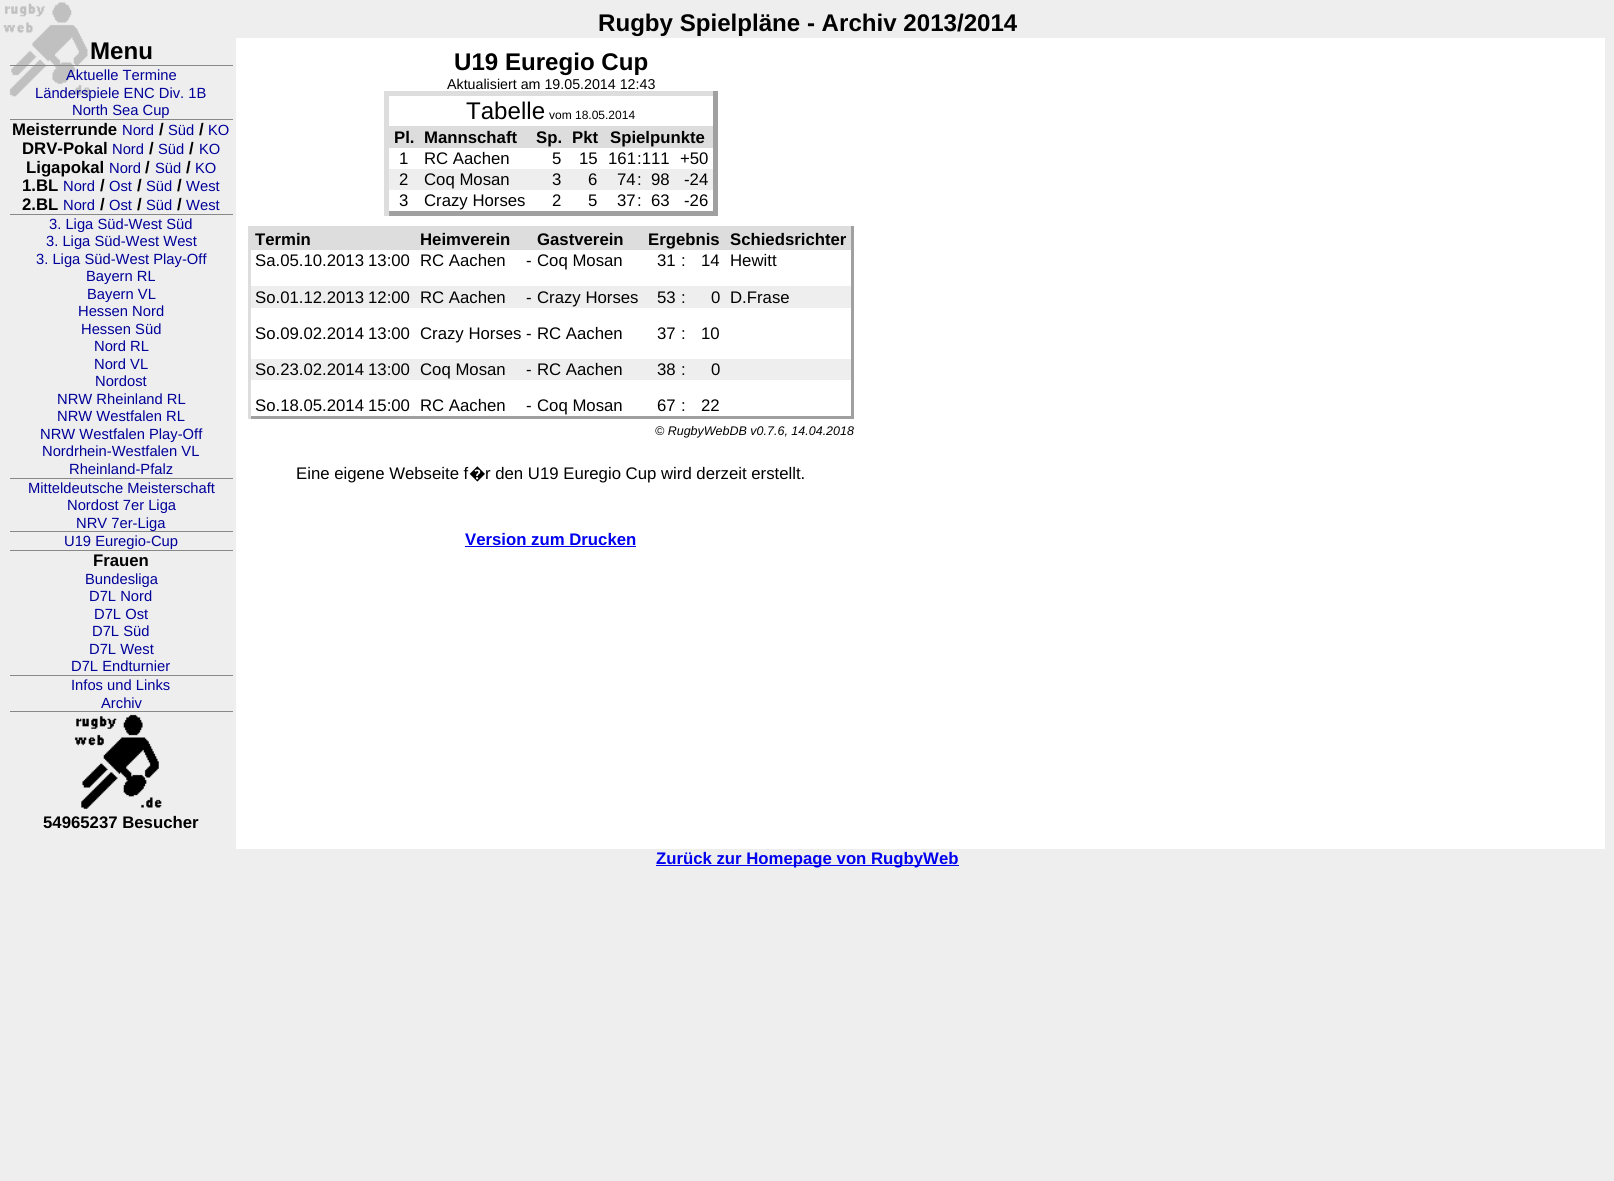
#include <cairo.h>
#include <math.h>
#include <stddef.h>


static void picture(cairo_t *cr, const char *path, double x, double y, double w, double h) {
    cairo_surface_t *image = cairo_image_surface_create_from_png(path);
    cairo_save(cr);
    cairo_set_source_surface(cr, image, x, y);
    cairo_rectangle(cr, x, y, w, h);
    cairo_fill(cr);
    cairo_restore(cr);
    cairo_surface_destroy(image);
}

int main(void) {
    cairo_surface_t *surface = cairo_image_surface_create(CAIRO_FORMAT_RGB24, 1614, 1181);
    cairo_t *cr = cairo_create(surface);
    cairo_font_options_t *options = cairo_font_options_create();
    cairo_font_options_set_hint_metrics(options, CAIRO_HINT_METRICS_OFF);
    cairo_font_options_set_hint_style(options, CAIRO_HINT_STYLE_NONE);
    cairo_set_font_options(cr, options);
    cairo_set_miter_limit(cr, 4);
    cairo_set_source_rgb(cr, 0.933, 0.933, 0.933);
    cairo_paint(cr);
    picture(cr, "img1.png", 3, 2, 88, 95);
    cairo_select_font_face(cr, "Liberation Sans", CAIRO_FONT_SLANT_NORMAL, CAIRO_FONT_WEIGHT_BOLD);
    cairo_set_font_size(cr, 24.1);
    cairo_set_source_rgb(cr, 0, 0, 0);
    cairo_move_to(cr, 598, 31);
    cairo_show_text(cr, "Rugby Spielpläne - Archiv 2013/2014");
    cairo_move_to(cr, 90, 59);
    cairo_show_text(cr, "Menu");
    cairo_set_source_rgb(cr, 0.533, 0.533, 0.533);
    cairo_rectangle(cr, 10, 65, 223, 1);
    cairo_fill(cr);
    cairo_select_font_face(cr, "Liberation Sans", CAIRO_FONT_SLANT_NORMAL, CAIRO_FONT_WEIGHT_NORMAL);
    cairo_set_font_size(cr, 14.75);
    cairo_set_source_rgb(cr, 0, 0, 0.6);
    cairo_move_to(cr, 66, 80);
    cairo_show_text(cr, "Aktuelle Termine");
    cairo_move_to(cr, 35, 98);
    cairo_show_text(cr, "Länderspiele ENC Div. 1B");
    cairo_move_to(cr, 72, 115);
    cairo_show_text(cr, "North Sea Cup");
    cairo_set_source_rgb(cr, 0.533, 0.533, 0.533);
    cairo_rectangle(cr, 10, 119, 223, 1);
    cairo_fill(cr);
    cairo_select_font_face(cr, "Liberation Sans", CAIRO_FONT_SLANT_NORMAL, CAIRO_FONT_WEIGHT_BOLD);
    cairo_set_font_size(cr, 16.75);
    cairo_set_source_rgb(cr, 0, 0, 0);
    cairo_move_to(cr, 12, 135);
    cairo_show_text(cr, "Meisterrunde");
    cairo_select_font_face(cr, "Liberation Sans", CAIRO_FONT_SLANT_NORMAL, CAIRO_FONT_WEIGHT_NORMAL);
    cairo_set_font_size(cr, 14.75);
    cairo_set_source_rgb(cr, 0, 0, 0.6);
    cairo_move_to(cr, 122, 135);
    cairo_show_text(cr, "Nord");
    cairo_select_font_face(cr, "Liberation Sans", CAIRO_FONT_SLANT_NORMAL, CAIRO_FONT_WEIGHT_BOLD);
    cairo_set_font_size(cr, 16.75);
    cairo_set_source_rgb(cr, 0, 0, 0);
    cairo_move_to(cr, 159, 135);
    cairo_show_text(cr, "/");
    cairo_select_font_face(cr, "Liberation Sans", CAIRO_FONT_SLANT_NORMAL, CAIRO_FONT_WEIGHT_NORMAL);
    cairo_set_font_size(cr, 14.75);
    cairo_set_source_rgb(cr, 0, 0, 0.6);
    cairo_move_to(cr, 168, 135);
    cairo_show_text(cr, "Süd");
    cairo_select_font_face(cr, "Liberation Sans", CAIRO_FONT_SLANT_NORMAL, CAIRO_FONT_WEIGHT_BOLD);
    cairo_set_font_size(cr, 16.75);
    cairo_set_source_rgb(cr, 0, 0, 0);
    cairo_move_to(cr, 199, 135);
    cairo_show_text(cr, "/");
    cairo_select_font_face(cr, "Liberation Sans", CAIRO_FONT_SLANT_NORMAL, CAIRO_FONT_WEIGHT_NORMAL);
    cairo_set_font_size(cr, 14.75);
    cairo_set_source_rgb(cr, 0, 0, 0.6);
    cairo_move_to(cr, 208, 135);
    cairo_show_text(cr, "KO");
    cairo_select_font_face(cr, "Liberation Sans", CAIRO_FONT_SLANT_NORMAL, CAIRO_FONT_WEIGHT_BOLD);
    cairo_set_font_size(cr, 16.75);
    cairo_set_source_rgb(cr, 0, 0, 0);
    cairo_move_to(cr, 22, 154);
    cairo_show_text(cr, "DRV-Pokal");
    cairo_select_font_face(cr, "Liberation Sans", CAIRO_FONT_SLANT_NORMAL, CAIRO_FONT_WEIGHT_NORMAL);
    cairo_set_font_size(cr, 14.75);
    cairo_set_source_rgb(cr, 0, 0, 0.6);
    cairo_move_to(cr, 112, 154);
    cairo_show_text(cr, "Nord");
    cairo_select_font_face(cr, "Liberation Sans", CAIRO_FONT_SLANT_NORMAL, CAIRO_FONT_WEIGHT_BOLD);
    cairo_set_font_size(cr, 16.75);
    cairo_set_source_rgb(cr, 0, 0, 0);
    cairo_move_to(cr, 149, 154);
    cairo_show_text(cr, "/");
    cairo_select_font_face(cr, "Liberation Sans", CAIRO_FONT_SLANT_NORMAL, CAIRO_FONT_WEIGHT_NORMAL);
    cairo_set_font_size(cr, 14.75);
    cairo_set_source_rgb(cr, 0, 0, 0.6);
    cairo_move_to(cr, 158, 154);
    cairo_show_text(cr, "Süd");
    cairo_select_font_face(cr, "Liberation Sans", CAIRO_FONT_SLANT_NORMAL, CAIRO_FONT_WEIGHT_BOLD);
    cairo_set_font_size(cr, 16.75);
    cairo_set_source_rgb(cr, 0, 0, 0);
    cairo_move_to(cr, 189, 154);
    cairo_show_text(cr, "/");
    cairo_select_font_face(cr, "Liberation Sans", CAIRO_FONT_SLANT_NORMAL, CAIRO_FONT_WEIGHT_NORMAL);
    cairo_set_font_size(cr, 14.75);
    cairo_set_source_rgb(cr, 0, 0, 0.6);
    cairo_move_to(cr, 199, 154);
    cairo_show_text(cr, "KO");
    cairo_select_font_face(cr, "Liberation Sans", CAIRO_FONT_SLANT_NORMAL, CAIRO_FONT_WEIGHT_BOLD);
    cairo_set_font_size(cr, 16.75);
    cairo_set_source_rgb(cr, 0, 0, 0);
    cairo_move_to(cr, 26, 173);
    cairo_show_text(cr, "Ligapokal");
    cairo_select_font_face(cr, "Liberation Sans", CAIRO_FONT_SLANT_NORMAL, CAIRO_FONT_WEIGHT_NORMAL);
    cairo_set_font_size(cr, 14.75);
    cairo_set_source_rgb(cr, 0, 0, 0.6);
    cairo_move_to(cr, 109, 173);
    cairo_show_text(cr, "Nord");
    cairo_select_font_face(cr, "Liberation Sans", CAIRO_FONT_SLANT_NORMAL, CAIRO_FONT_WEIGHT_BOLD);
    cairo_set_font_size(cr, 16.75);
    cairo_set_source_rgb(cr, 0, 0, 0);
    cairo_move_to(cr, 145, 173);
    cairo_show_text(cr, "/");
    cairo_select_font_face(cr, "Liberation Sans", CAIRO_FONT_SLANT_NORMAL, CAIRO_FONT_WEIGHT_NORMAL);
    cairo_set_font_size(cr, 14.75);
    cairo_set_source_rgb(cr, 0, 0, 0.6);
    cairo_move_to(cr, 155, 173);
    cairo_show_text(cr, "Süd");
    cairo_select_font_face(cr, "Liberation Sans", CAIRO_FONT_SLANT_NORMAL, CAIRO_FONT_WEIGHT_BOLD);
    cairo_set_font_size(cr, 16.75);
    cairo_set_source_rgb(cr, 0, 0, 0);
    cairo_move_to(cr, 186, 173);
    cairo_show_text(cr, "/");
    cairo_select_font_face(cr, "Liberation Sans", CAIRO_FONT_SLANT_NORMAL, CAIRO_FONT_WEIGHT_NORMAL);
    cairo_set_font_size(cr, 14.75);
    cairo_set_source_rgb(cr, 0, 0, 0.6);
    cairo_move_to(cr, 195, 173);
    cairo_show_text(cr, "KO");
    cairo_select_font_face(cr, "Liberation Sans", CAIRO_FONT_SLANT_NORMAL, CAIRO_FONT_WEIGHT_BOLD);
    cairo_set_font_size(cr, 16.75);
    cairo_set_source_rgb(cr, 0, 0, 0);
    cairo_move_to(cr, 22, 191);
    cairo_show_text(cr, "1.BL");
    cairo_select_font_face(cr, "Liberation Sans", CAIRO_FONT_SLANT_NORMAL, CAIRO_FONT_WEIGHT_NORMAL);
    cairo_set_font_size(cr, 14.75);
    cairo_set_source_rgb(cr, 0, 0, 0.6);
    cairo_move_to(cr, 63, 191);
    cairo_show_text(cr, "Nord");
    cairo_select_font_face(cr, "Liberation Sans", CAIRO_FONT_SLANT_NORMAL, CAIRO_FONT_WEIGHT_BOLD);
    cairo_set_font_size(cr, 16.75);
    cairo_set_source_rgb(cr, 0, 0, 0);
    cairo_move_to(cr, 100, 191);
    cairo_show_text(cr, "/");
    cairo_select_font_face(cr, "Liberation Sans", CAIRO_FONT_SLANT_NORMAL, CAIRO_FONT_WEIGHT_NORMAL);
    cairo_set_font_size(cr, 14.75);
    cairo_set_source_rgb(cr, 0, 0, 0.6);
    cairo_move_to(cr, 109, 191);
    cairo_show_text(cr, "Ost");
    cairo_select_font_face(cr, "Liberation Sans", CAIRO_FONT_SLANT_NORMAL, CAIRO_FONT_WEIGHT_BOLD);
    cairo_set_font_size(cr, 16.75);
    cairo_set_source_rgb(cr, 0, 0, 0);
    cairo_move_to(cr, 137, 191);
    cairo_show_text(cr, "/");
    cairo_select_font_face(cr, "Liberation Sans", CAIRO_FONT_SLANT_NORMAL, CAIRO_FONT_WEIGHT_NORMAL);
    cairo_set_font_size(cr, 14.75);
    cairo_set_source_rgb(cr, 0, 0, 0.6);
    cairo_move_to(cr, 146, 191);
    cairo_show_text(cr, "Süd");
    cairo_select_font_face(cr, "Liberation Sans", CAIRO_FONT_SLANT_NORMAL, CAIRO_FONT_WEIGHT_BOLD);
    cairo_set_font_size(cr, 16.75);
    cairo_set_source_rgb(cr, 0, 0, 0);
    cairo_move_to(cr, 177, 191);
    cairo_show_text(cr, "/");
    cairo_select_font_face(cr, "Liberation Sans", CAIRO_FONT_SLANT_NORMAL, CAIRO_FONT_WEIGHT_NORMAL);
    cairo_set_font_size(cr, 14.75);
    cairo_set_source_rgb(cr, 0, 0, 0.6);
    cairo_move_to(cr, 186, 191);
    cairo_show_text(cr, "West");
    cairo_select_font_face(cr, "Liberation Sans", CAIRO_FONT_SLANT_NORMAL, CAIRO_FONT_WEIGHT_BOLD);
    cairo_set_font_size(cr, 16.75);
    cairo_set_source_rgb(cr, 0, 0, 0);
    cairo_move_to(cr, 22, 210);
    cairo_show_text(cr, "2.BL");
    cairo_select_font_face(cr, "Liberation Sans", CAIRO_FONT_SLANT_NORMAL, CAIRO_FONT_WEIGHT_NORMAL);
    cairo_set_font_size(cr, 14.75);
    cairo_set_source_rgb(cr, 0, 0, 0.6);
    cairo_move_to(cr, 63, 210);
    cairo_show_text(cr, "Nord");
    cairo_select_font_face(cr, "Liberation Sans", CAIRO_FONT_SLANT_NORMAL, CAIRO_FONT_WEIGHT_BOLD);
    cairo_set_font_size(cr, 16.75);
    cairo_set_source_rgb(cr, 0, 0, 0);
    cairo_move_to(cr, 100, 210);
    cairo_show_text(cr, "/");
    cairo_select_font_face(cr, "Liberation Sans", CAIRO_FONT_SLANT_NORMAL, CAIRO_FONT_WEIGHT_NORMAL);
    cairo_set_font_size(cr, 14.75);
    cairo_set_source_rgb(cr, 0, 0, 0.6);
    cairo_move_to(cr, 109, 210);
    cairo_show_text(cr, "Ost");
    cairo_select_font_face(cr, "Liberation Sans", CAIRO_FONT_SLANT_NORMAL, CAIRO_FONT_WEIGHT_BOLD);
    cairo_set_font_size(cr, 16.75);
    cairo_set_source_rgb(cr, 0, 0, 0);
    cairo_move_to(cr, 137, 210);
    cairo_show_text(cr, "/");
    cairo_select_font_face(cr, "Liberation Sans", CAIRO_FONT_SLANT_NORMAL, CAIRO_FONT_WEIGHT_NORMAL);
    cairo_set_font_size(cr, 14.75);
    cairo_set_source_rgb(cr, 0, 0, 0.6);
    cairo_move_to(cr, 146, 210);
    cairo_show_text(cr, "Süd");
    cairo_select_font_face(cr, "Liberation Sans", CAIRO_FONT_SLANT_NORMAL, CAIRO_FONT_WEIGHT_BOLD);
    cairo_set_font_size(cr, 16.75);
    cairo_set_source_rgb(cr, 0, 0, 0);
    cairo_move_to(cr, 177, 210);
    cairo_show_text(cr, "/");
    cairo_select_font_face(cr, "Liberation Sans", CAIRO_FONT_SLANT_NORMAL, CAIRO_FONT_WEIGHT_NORMAL);
    cairo_set_font_size(cr, 14.75);
    cairo_set_source_rgb(cr, 0, 0, 0.6);
    cairo_move_to(cr, 186, 210);
    cairo_show_text(cr, "West");
    cairo_set_source_rgb(cr, 0.533, 0.533, 0.533);
    cairo_rectangle(cr, 10, 214, 223, 1);
    cairo_fill(cr);
    cairo_set_source_rgb(cr, 0, 0, 0.6);
    cairo_move_to(cr, 49, 229);
    cairo_show_text(cr, "3. Liga Süd-West Süd");
    cairo_move_to(cr, 46, 246);
    cairo_show_text(cr, "3. Liga Süd-West West");
    cairo_move_to(cr, 36, 264);
    cairo_show_text(cr, "3. Liga Süd-West Play-Off");
    cairo_move_to(cr, 86, 281);
    cairo_show_text(cr, "Bayern RL");
    cairo_move_to(cr, 87, 299);
    cairo_show_text(cr, "Bayern VL");
    cairo_move_to(cr, 78, 316);
    cairo_show_text(cr, "Hessen Nord");
    cairo_move_to(cr, 81, 334);
    cairo_show_text(cr, "Hessen Süd");
    cairo_move_to(cr, 94, 351);
    cairo_show_text(cr, "Nord RL");
    cairo_move_to(cr, 94, 369);
    cairo_show_text(cr, "Nord VL");
    cairo_move_to(cr, 95, 386);
    cairo_show_text(cr, "Nordost");
    cairo_move_to(cr, 57, 404);
    cairo_show_text(cr, "NRW Rheinland RL");
    cairo_move_to(cr, 57, 421);
    cairo_show_text(cr, "NRW Westfalen RL");
    cairo_move_to(cr, 40, 439);
    cairo_show_text(cr, "NRW Westfalen Play-Off");
    cairo_move_to(cr, 42, 456);
    cairo_show_text(cr, "Nordrhein-Westfalen VL");
    cairo_move_to(cr, 69, 474);
    cairo_show_text(cr, "Rheinland-Pfalz");
    cairo_set_source_rgb(cr, 0.533, 0.533, 0.533);
    cairo_rectangle(cr, 10, 478, 223, 1);
    cairo_fill(cr);
    cairo_set_source_rgb(cr, 0, 0, 0.6);
    cairo_move_to(cr, 28, 493);
    cairo_show_text(cr, "Mitteldeutsche Meisterschaft");
    cairo_move_to(cr, 67, 510);
    cairo_show_text(cr, "Nordost 7er Liga");
    cairo_set_source_rgb(cr, 0.533, 0.533, 0.533);
    cairo_rectangle(cr, 10, 531, 223, 1);
    cairo_fill(cr);
    cairo_set_source_rgb(cr, 0, 0, 0.6);
    cairo_move_to(cr, 76, 528);
    cairo_show_text(cr, "NRV 7er-Liga");
    cairo_move_to(cr, 64, 546);
    cairo_show_text(cr, "U19 Euregio-Cup");
    cairo_set_source_rgb(cr, 0.533, 0.533, 0.533);
    cairo_rectangle(cr, 10, 550, 223, 1);
    cairo_fill(cr);
    cairo_select_font_face(cr, "Liberation Sans", CAIRO_FONT_SLANT_NORMAL, CAIRO_FONT_WEIGHT_BOLD);
    cairo_set_font_size(cr, 16.75);
    cairo_set_source_rgb(cr, 0, 0, 0);
    cairo_move_to(cr, 93, 566);
    cairo_show_text(cr, "Frauen");
    cairo_select_font_face(cr, "Liberation Sans", CAIRO_FONT_SLANT_NORMAL, CAIRO_FONT_WEIGHT_NORMAL);
    cairo_set_font_size(cr, 14.75);
    cairo_set_source_rgb(cr, 0, 0, 0.6);
    cairo_move_to(cr, 85, 584);
    cairo_show_text(cr, "Bundesliga");
    cairo_move_to(cr, 89, 601);
    cairo_show_text(cr, "D7L Nord");
    cairo_move_to(cr, 94, 619);
    cairo_show_text(cr, "D7L Ost");
    cairo_move_to(cr, 92, 636);
    cairo_show_text(cr, "D7L Süd");
    cairo_move_to(cr, 89, 654);
    cairo_show_text(cr, "D7L West");
    cairo_move_to(cr, 71, 671);
    cairo_show_text(cr, "D7L Endturnier");
    cairo_set_source_rgb(cr, 0.533, 0.533, 0.533);
    cairo_rectangle(cr, 10, 675, 223, 1);
    cairo_fill(cr);
    cairo_set_source_rgb(cr, 0, 0, 0.6);
    cairo_move_to(cr, 71, 690);
    cairo_show_text(cr, "Infos und Links");
    cairo_move_to(cr, 101, 708);
    cairo_show_text(cr, "Archiv");
    cairo_set_source_rgb(cr, 0.533, 0.533, 0.533);
    cairo_rectangle(cr, 10, 711, 223, 1);
    cairo_fill(cr);
    picture(cr, "img2.png", 74, 714, 88, 95);
    cairo_select_font_face(cr, "Liberation Sans", CAIRO_FONT_SLANT_NORMAL, CAIRO_FONT_WEIGHT_BOLD);
    cairo_set_font_size(cr, 16.75);
    cairo_set_source_rgb(cr, 0, 0, 0);
    cairo_move_to(cr, 43, 828);
    cairo_show_text(cr, "54965237 Besucher");
    cairo_set_source_rgb(cr, 1, 1, 1);
    cairo_rectangle(cr, 236, 38, 1369, 811);
    cairo_fill(cr);
    cairo_set_font_size(cr, 24.1);
    cairo_set_source_rgb(cr, 0, 0, 0);
    cairo_move_to(cr, 454, 70);
    cairo_show_text(cr, "U19 Euregio Cup");
    cairo_select_font_face(cr, "Liberation Sans", CAIRO_FONT_SLANT_NORMAL, CAIRO_FONT_WEIGHT_NORMAL);
    cairo_set_font_size(cr, 14.25);
    cairo_move_to(cr, 447, 89);
    cairo_show_text(cr, "Aktualisiert am 19.05.2014 12:43");
    cairo_set_source_rgb(cr, 0.867, 0.867, 0.867);
    cairo_rectangle(cr, 384, 91, 334, 5);
    cairo_fill(cr);
    cairo_set_source_rgb(cr, 0.627, 0.627, 0.627);
    cairo_rectangle(cr, 713, 91, 5, 125);
    cairo_fill(cr);
    cairo_rectangle(cr, 384, 211, 334, 5);
    cairo_fill(cr);
    cairo_set_source_rgb(cr, 0.867, 0.867, 0.867);
    cairo_rectangle(cr, 384, 91, 5, 125);
    cairo_fill(cr);
    cairo_set_font_size(cr, 24.1);
    cairo_set_source_rgb(cr, 0, 0, 0);
    cairo_move_to(cr, 466, 119);
    cairo_show_text(cr, "Tabelle");
    cairo_set_font_size(cr, 12);
    cairo_move_to(cr, 549, 119);
    cairo_show_text(cr, "vom 18.05.2014");
    cairo_set_source_rgb(cr, 0.867, 0.867, 0.867);
    cairo_rectangle(cr, 389, 126, 324, 22);
    cairo_fill(cr);
    cairo_select_font_face(cr, "Liberation Sans", CAIRO_FONT_SLANT_NORMAL, CAIRO_FONT_WEIGHT_BOLD);
    cairo_set_font_size(cr, 16.75);
    cairo_set_source_rgb(cr, 0, 0, 0);
    cairo_move_to(cr, 394, 143);
    cairo_show_text(cr, "Pl.");
    cairo_move_to(cr, 424, 143);
    cairo_show_text(cr, "Mannschaft");
    cairo_move_to(cr, 536, 143);
    cairo_show_text(cr, "Sp.");
    cairo_move_to(cr, 572, 143);
    cairo_show_text(cr, "Pkt");
    cairo_move_to(cr, 610, 143);
    cairo_show_text(cr, "Spielpunkte");
    cairo_select_font_face(cr, "Liberation Sans", CAIRO_FONT_SLANT_NORMAL, CAIRO_FONT_WEIGHT_NORMAL);
    cairo_move_to(cr, 399, 164);
    cairo_show_text(cr, "1");
    cairo_move_to(cr, 424, 164);
    cairo_show_text(cr, "RC Aachen");
    cairo_move_to(cr, 552, 164);
    cairo_show_text(cr, "5");
    cairo_move_to(cr, 579, 164);
    cairo_show_text(cr, "15");
    cairo_move_to(cr, 608, 164);
    cairo_show_text(cr, "161");
    cairo_move_to(cr, 637, 164);
    cairo_show_text(cr, ":111");
    cairo_move_to(cr, 680, 164);
    cairo_show_text(cr, "+50");
    cairo_set_source_rgb(cr, 0.933, 0.933, 0.933);
    cairo_rectangle(cr, 389, 169, 324, 21);
    cairo_fill(cr);
    cairo_set_source_rgb(cr, 0, 0, 0);
    cairo_move_to(cr, 399, 185);
    cairo_show_text(cr, "2");
    cairo_move_to(cr, 424, 185);
    cairo_show_text(cr, "Coq Mosan");
    cairo_move_to(cr, 552, 185);
    cairo_show_text(cr, "3");
    cairo_move_to(cr, 588, 185);
    cairo_show_text(cr, "6");
    cairo_move_to(cr, 617, 185);
    cairo_show_text(cr, "74");
    cairo_move_to(cr, 637, 185);
    cairo_show_text(cr, ":");
    cairo_move_to(cr, 651, 185);
    cairo_show_text(cr, "98");
    cairo_move_to(cr, 684, 185);
    cairo_show_text(cr, "-24");
    cairo_move_to(cr, 399, 206);
    cairo_show_text(cr, "3");
    cairo_move_to(cr, 424, 206);
    cairo_show_text(cr, "Crazy Horses");
    cairo_move_to(cr, 552, 206);
    cairo_show_text(cr, "2");
    cairo_move_to(cr, 588, 206);
    cairo_show_text(cr, "5");
    cairo_move_to(cr, 617, 206);
    cairo_show_text(cr, "37");
    cairo_move_to(cr, 637, 206);
    cairo_show_text(cr, ":");
    cairo_move_to(cr, 651, 206);
    cairo_show_text(cr, "63");
    cairo_move_to(cr, 684, 206);
    cairo_show_text(cr, "-26");
    cairo_set_source_rgb(cr, 0.867, 0.867, 0.867);
    cairo_rectangle(cr, 526, 228, 7, 22);
    cairo_fill(cr);
    cairo_rectangle(cr, 248, 226, 606, 3);
    cairo_fill(cr);
    cairo_set_source_rgb(cr, 0.627, 0.627, 0.627);
    cairo_rectangle(cr, 851, 226, 3, 193);
    cairo_fill(cr);
    cairo_rectangle(cr, 248, 416, 606, 3);
    cairo_fill(cr);
    cairo_set_source_rgb(cr, 0.867, 0.867, 0.867);
    cairo_rectangle(cr, 248, 226, 3, 193);
    cairo_fill(cr);
    cairo_rectangle(cr, 251, 229, 275, 21);
    cairo_fill(cr);
    cairo_select_font_face(cr, "Liberation Sans", CAIRO_FONT_SLANT_NORMAL, CAIRO_FONT_WEIGHT_BOLD);
    cairo_set_source_rgb(cr, 0, 0, 0);
    cairo_move_to(cr, 255, 245);
    cairo_show_text(cr, "Termin");
    cairo_move_to(cr, 420, 245);
    cairo_show_text(cr, "Heimverein");
    cairo_set_source_rgb(cr, 0.867, 0.867, 0.867);
    cairo_rectangle(cr, 533, 229, 318, 21);
    cairo_fill(cr);
    cairo_set_source_rgb(cr, 0, 0, 0);
    cairo_move_to(cr, 537, 245);
    cairo_show_text(cr, "Gastverein");
    cairo_move_to(cr, 648, 245);
    cairo_show_text(cr, "Ergebnis");
    cairo_move_to(cr, 730, 245);
    cairo_show_text(cr, "Schiedsrichter");
    cairo_select_font_face(cr, "Liberation Sans", CAIRO_FONT_SLANT_NORMAL, CAIRO_FONT_WEIGHT_NORMAL);
    cairo_move_to(cr, 255, 266);
    cairo_show_text(cr, "Sa.05.10.2013");
    cairo_move_to(cr, 368, 266);
    cairo_show_text(cr, "13:00");
    cairo_move_to(cr, 420, 266);
    cairo_show_text(cr, "RC Aachen");
    cairo_move_to(cr, 526, 266);
    cairo_show_text(cr, "-");
    cairo_move_to(cr, 537, 266);
    cairo_show_text(cr, "Coq Mosan");
    cairo_move_to(cr, 657, 266);
    cairo_show_text(cr, "31");
    cairo_move_to(cr, 681, 266);
    cairo_show_text(cr, ":");
    cairo_move_to(cr, 701, 266);
    cairo_show_text(cr, "14");
    cairo_move_to(cr, 730, 266);
    cairo_show_text(cr, "Hewitt");
    cairo_set_source_rgb(cr, 0.933, 0.933, 0.933);
    cairo_rectangle(cr, 251, 286, 600, 22);
    cairo_fill(cr);
    cairo_set_source_rgb(cr, 0, 0, 0);
    cairo_move_to(cr, 255, 303);
    cairo_show_text(cr, "So.01.12.2013");
    cairo_move_to(cr, 368, 303);
    cairo_show_text(cr, "12:00");
    cairo_move_to(cr, 420, 303);
    cairo_show_text(cr, "RC Aachen");
    cairo_move_to(cr, 526, 303);
    cairo_show_text(cr, "-");
    cairo_move_to(cr, 537, 303);
    cairo_show_text(cr, "Crazy Horses");
    cairo_move_to(cr, 657, 303);
    cairo_show_text(cr, "53");
    cairo_move_to(cr, 681, 303);
    cairo_show_text(cr, ":");
    cairo_move_to(cr, 711, 303);
    cairo_show_text(cr, "0");
    cairo_move_to(cr, 730, 303);
    cairo_show_text(cr, "D.Frase");
    cairo_move_to(cr, 255, 339);
    cairo_show_text(cr, "So.09.02.2014");
    cairo_move_to(cr, 368, 339);
    cairo_show_text(cr, "13:00");
    cairo_move_to(cr, 420, 339);
    cairo_show_text(cr, "Crazy Horses -");
    cairo_move_to(cr, 537, 339);
    cairo_show_text(cr, "RC Aachen");
    cairo_move_to(cr, 657, 339);
    cairo_show_text(cr, "37");
    cairo_move_to(cr, 681, 339);
    cairo_show_text(cr, ":");
    cairo_move_to(cr, 701, 339);
    cairo_show_text(cr, "10");
    cairo_set_source_rgb(cr, 0.933, 0.933, 0.933);
    cairo_rectangle(cr, 251, 359, 600, 21);
    cairo_fill(cr);
    cairo_set_source_rgb(cr, 0, 0, 0);
    cairo_move_to(cr, 255, 375);
    cairo_show_text(cr, "So.23.02.2014");
    cairo_move_to(cr, 368, 375);
    cairo_show_text(cr, "13:00");
    cairo_move_to(cr, 420, 375);
    cairo_show_text(cr, "Coq Mosan");
    cairo_move_to(cr, 526, 375);
    cairo_show_text(cr, "-");
    cairo_move_to(cr, 537, 375);
    cairo_show_text(cr, "RC Aachen");
    cairo_move_to(cr, 657, 375);
    cairo_show_text(cr, "38");
    cairo_move_to(cr, 681, 375);
    cairo_show_text(cr, ":");
    cairo_move_to(cr, 711, 375);
    cairo_show_text(cr, "0");
    cairo_move_to(cr, 255, 411);
    cairo_show_text(cr, "So.18.05.2014");
    cairo_move_to(cr, 368, 411);
    cairo_show_text(cr, "15:00");
    cairo_move_to(cr, 420, 411);
    cairo_show_text(cr, "RC Aachen");
    cairo_move_to(cr, 526, 411);
    cairo_show_text(cr, "-");
    cairo_move_to(cr, 537, 411);
    cairo_show_text(cr, "Coq Mosan");
    cairo_move_to(cr, 657, 411);
    cairo_show_text(cr, "67");
    cairo_move_to(cr, 681, 411);
    cairo_show_text(cr, ":");
    cairo_move_to(cr, 701, 411);
    cairo_show_text(cr, "22");
    cairo_select_font_face(cr, "Liberation Sans", CAIRO_FONT_SLANT_ITALIC, CAIRO_FONT_WEIGHT_NORMAL);
    cairo_set_font_size(cr, 12.5);
    cairo_move_to(cr, 655, 435);
    cairo_show_text(cr, "© RugbyWebDB v0.7.6, 14.04.2018");
    cairo_select_font_face(cr, "Liberation Sans", CAIRO_FONT_SLANT_NORMAL, CAIRO_FONT_WEIGHT_NORMAL);
    cairo_set_font_size(cr, 16.75);
    cairo_move_to(cr, 296, 479);
    cairo_show_text(cr, "Eine eigene Webseite f");
    cairo_select_font_face(cr, "Noto Sans", CAIRO_FONT_SLANT_NORMAL, CAIRO_FONT_WEIGHT_NORMAL);
    cairo_move_to(cr, 469, 479);
    cairo_show_text(cr, "�");
    cairo_select_font_face(cr, "Liberation Sans", CAIRO_FONT_SLANT_NORMAL, CAIRO_FONT_WEIGHT_NORMAL);
    cairo_move_to(cr, 485, 479);
    cairo_show_text(cr, "r den U19 Euregio Cup wird derzeit erstellt.");
    cairo_select_font_face(cr, "Liberation Sans", CAIRO_FONT_SLANT_NORMAL, CAIRO_FONT_WEIGHT_BOLD);
    cairo_set_source_rgb(cr, 0, 0, 0.933);
    cairo_move_to(cr, 465, 545);
    cairo_show_text(cr, "Version zum Drucken");
    cairo_rectangle(cr, 465, 546, 171, 1);
    cairo_fill(cr);
    cairo_rectangle(cr, 656, 865, 303, 1);
    cairo_fill(cr);
    cairo_move_to(cr, 656, 864);
    cairo_show_text(cr, "Zurück zur Homepage von RugbyWeb");
    cairo_surface_write_to_png(surface, "page.png");
    cairo_font_options_destroy(options);
    cairo_destroy(cr);
    cairo_surface_destroy(surface);
    return 0;
}
